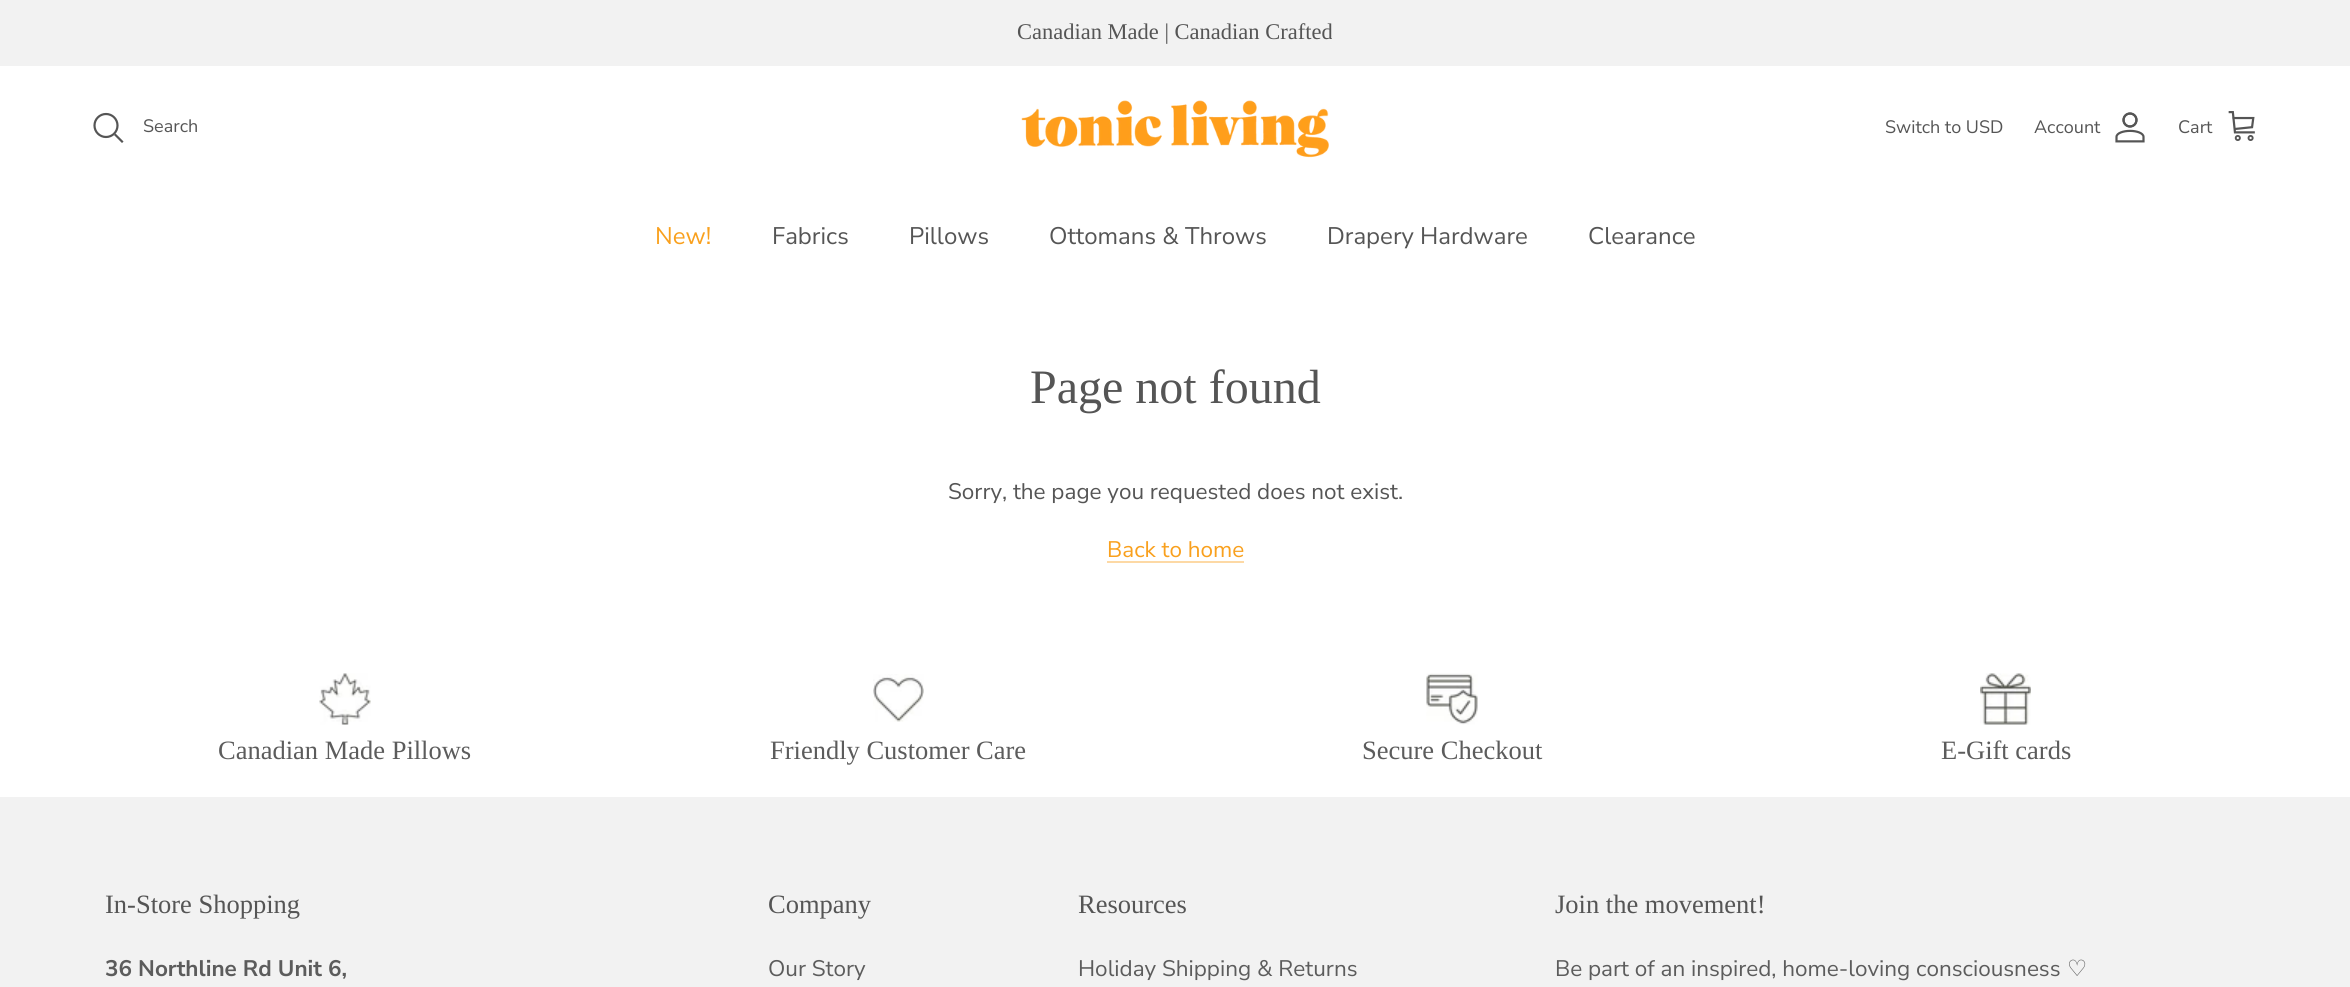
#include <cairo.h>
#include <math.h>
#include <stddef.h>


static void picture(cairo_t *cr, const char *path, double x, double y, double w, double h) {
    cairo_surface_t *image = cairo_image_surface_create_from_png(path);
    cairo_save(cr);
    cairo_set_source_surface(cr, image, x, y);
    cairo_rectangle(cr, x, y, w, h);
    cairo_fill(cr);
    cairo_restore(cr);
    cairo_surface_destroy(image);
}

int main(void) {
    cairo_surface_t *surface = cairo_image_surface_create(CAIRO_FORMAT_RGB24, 2350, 987);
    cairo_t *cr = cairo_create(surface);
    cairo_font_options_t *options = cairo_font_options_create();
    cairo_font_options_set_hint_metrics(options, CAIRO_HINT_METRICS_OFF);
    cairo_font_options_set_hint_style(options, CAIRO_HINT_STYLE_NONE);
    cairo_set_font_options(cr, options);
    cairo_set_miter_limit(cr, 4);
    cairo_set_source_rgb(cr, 1, 1, 1);
    cairo_paint(cr);
    cairo_set_source_rgb(cr, 0.949, 0.949, 0.949);
    cairo_rectangle(cr, 0, 0, 2350, 66);
    cairo_fill(cr);
    cairo_select_font_face(cr, "Liberation Serif", CAIRO_FONT_SLANT_NORMAL, CAIRO_FONT_WEIGHT_NORMAL);
    cairo_set_font_size(cr, 22.5);
    cairo_set_source_rgb(cr, 0.333, 0.333, 0.333);
    cairo_move_to(cr, 1017, 39);
    cairo_show_text(cr, "Canadian Made | Canadian Crafted");
    cairo_new_path(cr);
    cairo_arc(cr, 106, 125.5, 11.5, 0, 2 * M_PI);
    cairo_set_line_width(cr, 2.2);
    cairo_stroke(cr);
    cairo_select_font_face(cr, "Nunito Sans", CAIRO_FONT_SLANT_NORMAL, CAIRO_FONT_WEIGHT_NORMAL);
    cairo_set_font_size(cr, 18);
    cairo_move_to(cr, 143, 132);
    cairo_show_text(cr, "Search");
    cairo_new_path(cr);
    cairo_move_to(cr, 115.5, 135);
    cairo_line_to(cr, 122, 141.5);
    cairo_set_line_cap(cr, CAIRO_LINE_CAP_SQUARE);
    cairo_stroke(cr);
    picture(cr, "img1.png", 1021, 100, 308, 58);
    cairo_move_to(cr, 1885, 133);
    cairo_show_text(cr, "Switch to USD");
    cairo_move_to(cr, 2034, 133);
    cairo_show_text(cr, "Account");
    picture(cr, "img2.png", 2115, 112, 30, 31);
    cairo_move_to(cr, 2178, 133);
    cairo_show_text(cr, "Cart");
    picture(cr, "img3.png", 2228, 111, 27, 30);
    cairo_set_font_size(cr, 24);
    cairo_set_source_rgb(cr, 0.976, 0.627, 0.114);
    cairo_move_to(cr, 655, 244);
    cairo_show_text(cr, "New!");
    cairo_set_source_rgb(cr, 0.333, 0.333, 0.333);
    cairo_move_to(cr, 772, 244);
    cairo_show_text(cr, "Fabrics");
    cairo_move_to(cr, 909, 244);
    cairo_show_text(cr, "Pillows");
    cairo_move_to(cr, 1049, 244);
    cairo_show_text(cr, "Ottomans & Throws");
    cairo_move_to(cr, 1327, 244);
    cairo_show_text(cr, "Drapery Hardware");
    cairo_move_to(cr, 1588, 244);
    cairo_show_text(cr, "Clearance");
    cairo_select_font_face(cr, "Liberation Serif", CAIRO_FONT_SLANT_NORMAL, CAIRO_FONT_WEIGHT_NORMAL);
    cairo_set_font_size(cr, 48);
    cairo_move_to(cr, 1030, 403);
    cairo_show_text(cr, "Page not found");
    cairo_select_font_face(cr, "Nunito Sans", CAIRO_FONT_SLANT_NORMAL, CAIRO_FONT_WEIGHT_NORMAL);
    cairo_set_font_size(cr, 22.5);
    cairo_move_to(cr, 948, 499);
    cairo_show_text(cr, "Sorry, the page you requested does not exist.");
    cairo_set_source_rgb(cr, 0.976, 0.627, 0.114);
    cairo_move_to(cr, 1107, 557);
    cairo_show_text(cr, "Back to home");
    cairo_set_source_rgb(cr, 0.992, 0.851, 0.647);
    cairo_rectangle(cr, 1107, 561, 137, 2);
    cairo_fill(cr);
    picture(cr, "img4.png", 319, 673, 52, 52);
    cairo_select_font_face(cr, "Liberation Serif", CAIRO_FONT_SLANT_NORMAL, CAIRO_FONT_WEIGHT_NORMAL);
    cairo_set_font_size(cr, 26.5);
    cairo_set_source_rgb(cr, 0.361, 0.361, 0.361);
    cairo_move_to(cr, 218, 759);
    cairo_show_text(cr, "Canadian Made Pillows");
    picture(cr, "img5.png", 873, 674, 51, 48);
    cairo_move_to(cr, 770, 759);
    cairo_show_text(cr, "Friendly Customer Care");
    picture(cr, "img6.png", 1426, 673, 52, 52);
    cairo_move_to(cr, 1362, 759);
    cairo_show_text(cr, "Secure Checkout");
    picture(cr, "img7.png", 1980, 673, 51, 52);
    cairo_move_to(cr, 1941, 759);
    cairo_show_text(cr, "E-Gift cards");
    cairo_set_source_rgb(cr, 0.949, 0.949, 0.949);
    cairo_rectangle(cr, 0, 797, 2350, 190);
    cairo_fill(cr);
    cairo_set_source_rgb(cr, 0.333, 0.333, 0.333);
    cairo_move_to(cr, 105, 913);
    cairo_show_text(cr, "In-Store Shopping");
    cairo_select_font_face(cr, "Nunito Sans", CAIRO_FONT_SLANT_NORMAL, CAIRO_FONT_WEIGHT_BOLD);
    cairo_set_font_size(cr, 22.5);
    cairo_set_source_rgb(cr, 0.361, 0.361, 0.361);
    cairo_move_to(cr, 105, 976);
    cairo_show_text(cr, "36 Northline Rd Unit 6,");
    cairo_select_font_face(cr, "Liberation Serif", CAIRO_FONT_SLANT_NORMAL, CAIRO_FONT_WEIGHT_NORMAL);
    cairo_set_font_size(cr, 26.5);
    cairo_set_source_rgb(cr, 0.333, 0.333, 0.333);
    cairo_move_to(cr, 768, 913);
    cairo_show_text(cr, "Company");
    cairo_select_font_face(cr, "Nunito Sans", CAIRO_FONT_SLANT_NORMAL, CAIRO_FONT_WEIGHT_NORMAL);
    cairo_set_font_size(cr, 22.5);
    cairo_set_source_rgb(cr, 0.361, 0.361, 0.361);
    cairo_move_to(cr, 768, 976);
    cairo_show_text(cr, "Our Story");
    cairo_select_font_face(cr, "Liberation Serif", CAIRO_FONT_SLANT_NORMAL, CAIRO_FONT_WEIGHT_NORMAL);
    cairo_set_font_size(cr, 26.5);
    cairo_set_source_rgb(cr, 0.333, 0.333, 0.333);
    cairo_move_to(cr, 1078, 913);
    cairo_show_text(cr, "Resources");
    cairo_select_font_face(cr, "Nunito Sans", CAIRO_FONT_SLANT_NORMAL, CAIRO_FONT_WEIGHT_NORMAL);
    cairo_set_font_size(cr, 22.5);
    cairo_set_source_rgb(cr, 0.361, 0.361, 0.361);
    cairo_move_to(cr, 1078, 976);
    cairo_show_text(cr, "Holiday Shipping & Returns");
    cairo_select_font_face(cr, "Liberation Serif", CAIRO_FONT_SLANT_NORMAL, CAIRO_FONT_WEIGHT_NORMAL);
    cairo_set_font_size(cr, 26.5);
    cairo_set_source_rgb(cr, 0.333, 0.333, 0.333);
    cairo_move_to(cr, 1555, 913);
    cairo_show_text(cr, "Join the movement!");
    cairo_select_font_face(cr, "Nunito Sans", CAIRO_FONT_SLANT_NORMAL, CAIRO_FONT_WEIGHT_NORMAL);
    cairo_set_font_size(cr, 22.5);
    cairo_set_source_rgb(cr, 0.361, 0.361, 0.361);
    cairo_move_to(cr, 1555, 976);
    cairo_show_text(cr, "Be part of an inspired, home-loving consciousness");
    cairo_select_font_face(cr, "DejaVu Sans", CAIRO_FONT_SLANT_NORMAL, CAIRO_FONT_WEIGHT_NORMAL);
    cairo_move_to(cr, 2067, 976);
    cairo_show_text(cr, "♡");
    cairo_surface_write_to_png(surface, "page.png");
    cairo_font_options_destroy(options);
    cairo_destroy(cr);
    cairo_surface_destroy(surface);
    return 0;
}
